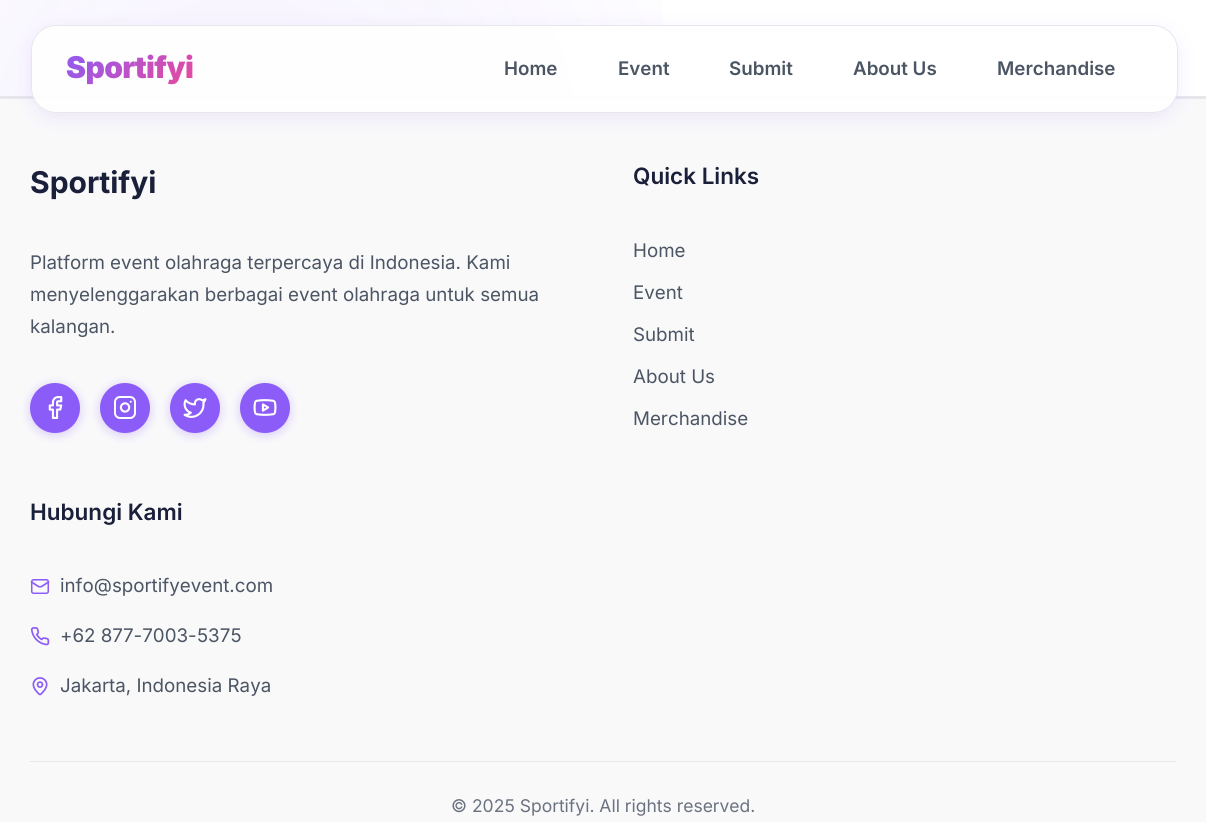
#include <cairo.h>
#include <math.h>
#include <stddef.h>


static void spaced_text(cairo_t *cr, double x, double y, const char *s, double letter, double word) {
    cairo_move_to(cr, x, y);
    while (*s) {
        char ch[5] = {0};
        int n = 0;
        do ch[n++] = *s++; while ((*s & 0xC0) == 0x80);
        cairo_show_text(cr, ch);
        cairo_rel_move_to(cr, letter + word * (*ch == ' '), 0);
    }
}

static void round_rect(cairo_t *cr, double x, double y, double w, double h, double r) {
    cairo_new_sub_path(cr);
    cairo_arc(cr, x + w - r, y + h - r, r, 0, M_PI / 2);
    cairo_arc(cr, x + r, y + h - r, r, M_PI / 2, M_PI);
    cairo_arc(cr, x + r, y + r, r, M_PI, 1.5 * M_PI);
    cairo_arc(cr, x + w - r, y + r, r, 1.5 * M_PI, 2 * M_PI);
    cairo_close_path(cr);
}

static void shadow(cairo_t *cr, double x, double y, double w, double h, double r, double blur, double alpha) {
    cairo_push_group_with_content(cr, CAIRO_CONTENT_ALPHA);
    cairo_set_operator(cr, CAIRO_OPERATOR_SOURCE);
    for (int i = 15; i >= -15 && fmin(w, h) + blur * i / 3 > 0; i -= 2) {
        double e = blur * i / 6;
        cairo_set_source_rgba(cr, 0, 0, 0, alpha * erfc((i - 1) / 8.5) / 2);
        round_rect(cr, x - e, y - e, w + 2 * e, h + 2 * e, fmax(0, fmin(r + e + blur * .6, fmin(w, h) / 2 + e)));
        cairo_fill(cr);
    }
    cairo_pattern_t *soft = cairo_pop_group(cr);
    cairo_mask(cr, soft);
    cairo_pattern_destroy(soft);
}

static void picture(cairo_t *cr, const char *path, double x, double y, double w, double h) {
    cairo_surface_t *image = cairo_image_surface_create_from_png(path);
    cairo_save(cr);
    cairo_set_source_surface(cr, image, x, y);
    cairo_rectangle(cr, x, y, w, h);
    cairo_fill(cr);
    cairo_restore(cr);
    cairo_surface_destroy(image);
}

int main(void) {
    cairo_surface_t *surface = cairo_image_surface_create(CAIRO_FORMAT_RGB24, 1206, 822);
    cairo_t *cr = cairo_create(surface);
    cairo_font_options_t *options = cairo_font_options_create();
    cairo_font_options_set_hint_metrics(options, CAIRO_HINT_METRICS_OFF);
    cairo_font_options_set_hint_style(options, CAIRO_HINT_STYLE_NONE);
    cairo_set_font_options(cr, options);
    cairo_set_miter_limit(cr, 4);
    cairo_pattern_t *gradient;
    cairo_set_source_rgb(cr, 1, 1, 1);
    cairo_paint(cr);
    gradient = cairo_pattern_create_radial(241, 165, 0, 241, 165, 1168);
    cairo_pattern_add_color_stop_rgba(gradient, 0, 0.545, 0.361, 0.965, 0.08);
    cairo_pattern_add_color_stop_rgba(gradient, 0.5, 0.545, 0.361, 0.965, 0);
    cairo_set_source(cr, gradient);
    cairo_pattern_destroy(gradient);
    cairo_rectangle(cr, 0, 0, 662, 96);
    cairo_fill(cr);
    cairo_set_source_rgb(cr, 0.973, 0.976, 0.98);
    cairo_rectangle(cr, 0, 99, 1206, 723);
    cairo_fill(cr);
    cairo_set_source_rgb(cr, 0.898, 0.906, 0.922);
    cairo_rectangle(cr, 0, 96, 1206, 3);
    cairo_fill(cr);
    cairo_save(cr);
    cairo_set_fill_rule(cr, CAIRO_FILL_RULE_EVEN_ODD);
    cairo_new_path(cr);
    cairo_move_to(cr, 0, 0);
    cairo_line_to(cr, 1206, 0);
    cairo_line_to(cr, 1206, 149);
    cairo_line_to(cr, 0, 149);
    cairo_close_path(cr);
    cairo_move_to(cr, 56, 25);
    cairo_line_to(cr, 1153, 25);
    cairo_curve_to(cr, 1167, 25, 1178, 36, 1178, 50);
    cairo_line_to(cr, 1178, 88);
    cairo_curve_to(cr, 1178, 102, 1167, 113, 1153, 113);
    cairo_line_to(cr, 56, 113);
    cairo_curve_to(cr, 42, 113, 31, 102, 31, 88);
    cairo_line_to(cr, 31, 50);
    cairo_curve_to(cr, 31, 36, 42, 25, 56, 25);
    cairo_close_path(cr);
    cairo_clip(cr);
    cairo_set_source_rgb(cr, 0.545, 0.361, 0.965);
    shadow(cr, 31, 30, 1147, 88, 25, 10, 0.12);
    cairo_restore(cr);
    cairo_set_source_rgba(cr, 1, 1, 1, 0.9);
    round_rect(cr, 31.5, 25.5, 1146, 87, 24.5);
    cairo_fill_preserve(cr);
    cairo_set_source_rgb(cr, 0.898, 0.906, 0.922);
    cairo_set_line_width(cr, 1);
    cairo_stroke(cr);
    cairo_select_font_face(cr, "Inter Black", CAIRO_FONT_SLANT_NORMAL, CAIRO_FONT_WEIGHT_NORMAL);
    cairo_set_font_size(cr, 30);
    gradient = cairo_pattern_create_linear(86, 25, 173, 112);
    cairo_pattern_add_color_stop_rgba(gradient, 0, 0.545, 0.361, 0.965, 1);
    cairo_pattern_add_color_stop_rgba(gradient, 1, 0.925, 0.282, 0.6, 1);
    cairo_set_source(cr, gradient);
    cairo_pattern_destroy(gradient);
    spaced_text(cr, 66, 78, "Sportifyi", -0.6, 0);
    cairo_select_font_face(cr, "Inter SemiBold", CAIRO_FONT_SLANT_NORMAL, CAIRO_FONT_WEIGHT_NORMAL);
    cairo_set_font_size(cr, 18.75);
    cairo_set_source_rgb(cr, 0.294, 0.333, 0.388);
    cairo_move_to(cr, 504, 75);
    cairo_show_text(cr, "Home");
    cairo_move_to(cr, 618, 75);
    cairo_show_text(cr, "Event");
    cairo_move_to(cr, 729, 75);
    cairo_show_text(cr, "Submit");
    cairo_move_to(cr, 853, 75);
    cairo_show_text(cr, "About Us");
    cairo_move_to(cr, 997, 75);
    cairo_show_text(cr, "Merchandise");
    cairo_select_font_face(cr, "Inter", CAIRO_FONT_SLANT_NORMAL, CAIRO_FONT_WEIGHT_BOLD);
    cairo_set_font_size(cr, 30);
    cairo_set_source_rgb(cr, 0.102, 0.122, 0.227);
    cairo_move_to(cr, 30, 193);
    cairo_show_text(cr, "Sportifyi");
    cairo_select_font_face(cr, "Inter", CAIRO_FONT_SLANT_NORMAL, CAIRO_FONT_WEIGHT_NORMAL);
    cairo_set_font_size(cr, 18.75);
    cairo_set_source_rgb(cr, 0.294, 0.333, 0.388);
    cairo_move_to(cr, 30, 269);
    cairo_show_text(cr, "Platform event olahraga terpercaya di Indonesia. Kami");
    cairo_move_to(cr, 30, 301);
    cairo_show_text(cr, "menyelenggarakan berbagai event olahraga untuk semua");
    cairo_move_to(cr, 30, 333);
    cairo_show_text(cr, "kalangan.");
    cairo_set_source_rgb(cr, 0.545, 0.361, 0.965);
    shadow(cr, 30, 385, 50, 50, 25, 5, 0.3);
    cairo_set_source_rgb(cr, 0.545, 0.361, 0.965);
    cairo_arc(cr, 55, 408, 25, 0, 2 * M_PI);
    cairo_fill(cr);
    picture(cr, "img1.png", 48, 396, 15, 23);
    cairo_set_source_rgb(cr, 0.545, 0.361, 0.965);
    shadow(cr, 100, 385, 50, 50, 25, 5, 0.3);
    cairo_set_source_rgb(cr, 0.545, 0.361, 0.965);
    cairo_arc(cr, 125, 408, 25, 0, 2 * M_PI);
    cairo_fill(cr);
    picture(cr, "img2.png", 114, 396, 22, 23);
    cairo_set_source_rgb(cr, 0.545, 0.361, 0.965);
    shadow(cr, 170, 385, 50, 50, 25, 5, 0.3);
    cairo_set_source_rgb(cr, 0.545, 0.361, 0.965);
    cairo_arc(cr, 195, 408, 25, 0, 2 * M_PI);
    cairo_fill(cr);
    picture(cr, "img3.png", 183, 398, 24, 20);
    cairo_set_source_rgb(cr, 0.545, 0.361, 0.965);
    shadow(cr, 240, 385, 50, 50, 25, 5, 0.3);
    cairo_set_source_rgb(cr, 0.545, 0.361, 0.965);
    cairo_arc(cr, 265, 408, 25, 0, 2 * M_PI);
    cairo_fill(cr);
    picture(cr, "img4.png", 253, 399, 24, 17);
    cairo_select_font_face(cr, "Inter SemiBold", CAIRO_FONT_SLANT_NORMAL, CAIRO_FONT_WEIGHT_NORMAL);
    cairo_set_font_size(cr, 22.5);
    cairo_set_source_rgb(cr, 0.102, 0.122, 0.227);
    cairo_move_to(cr, 633, 184);
    cairo_show_text(cr, "Quick Links");
    cairo_select_font_face(cr, "Inter", CAIRO_FONT_SLANT_NORMAL, CAIRO_FONT_WEIGHT_NORMAL);
    cairo_set_font_size(cr, 18.75);
    cairo_set_source_rgb(cr, 0.294, 0.333, 0.388);
    cairo_move_to(cr, 633, 257);
    cairo_show_text(cr, "Home");
    cairo_move_to(cr, 633, 299);
    cairo_show_text(cr, "Event");
    cairo_move_to(cr, 633, 341);
    cairo_show_text(cr, "Submit");
    cairo_move_to(cr, 633, 383);
    cairo_show_text(cr, "About Us");
    cairo_move_to(cr, 633, 425);
    cairo_show_text(cr, "Merchandise");
    cairo_select_font_face(cr, "Inter SemiBold", CAIRO_FONT_SLANT_NORMAL, CAIRO_FONT_WEIGHT_NORMAL);
    cairo_set_font_size(cr, 22.5);
    cairo_set_source_rgb(cr, 0.102, 0.122, 0.227);
    cairo_move_to(cr, 30, 520);
    cairo_show_text(cr, "Hubungi Kami");
    cairo_new_path(cr);
    cairo_move_to(cr, 48.5, 582);
    cairo_curve_to(cr, 38, 588.5, 42, 588.5, 31.5, 582);
    cairo_set_source_rgb(cr, 0.545, 0.361, 0.965);
    cairo_set_line_width(cr, 1.7);
    cairo_set_line_cap(cr, CAIRO_LINE_CAP_ROUND);
    cairo_set_line_join(cr, CAIRO_LINE_JOIN_ROUND);
    cairo_stroke(cr);
    round_rect(cr, 31.75, 579.75, 16.5, 13.5, 1.75);
    cairo_set_line_width(cr, 1.5);
    cairo_set_line_cap(cr, CAIRO_LINE_CAP_BUTT);
    cairo_set_line_join(cr, CAIRO_LINE_JOIN_MITER);
    cairo_stroke(cr);
    cairo_select_font_face(cr, "Inter", CAIRO_FONT_SLANT_NORMAL, CAIRO_FONT_WEIGHT_NORMAL);
    cairo_set_font_size(cr, 18.75);
    cairo_set_source_rgb(cr, 0.294, 0.333, 0.388);
    cairo_move_to(cr, 60, 592);
    cairo_show_text(cr, "info@sportifyevent.com");
    picture(cr, "img5.png", 30, 627, 20, 19);
    cairo_move_to(cr, 60, 642);
    cairo_show_text(cr, "+62 877-7003-5375");
    picture(cr, "img6.png", 32, 677, 16, 19);
    cairo_move_to(cr, 60, 692);
    cairo_show_text(cr, "Jakarta, Indonesia Raya");
    cairo_set_source_rgb(cr, 0.898, 0.906, 0.922);
    cairo_rectangle(cr, 30, 761, 1146, 1);
    cairo_fill(cr);
    cairo_set_font_size(cr, 17.5);
    cairo_set_source_rgb(cr, 0.42, 0.447, 0.502);
    cairo_move_to(cr, 451, 812);
    cairo_show_text(cr, "© 2025 Sportifyi. All rights reserved.");
    cairo_surface_write_to_png(surface, "page.png");
    cairo_font_options_destroy(options);
    cairo_destroy(cr);
    cairo_surface_destroy(surface);
    return 0;
}
